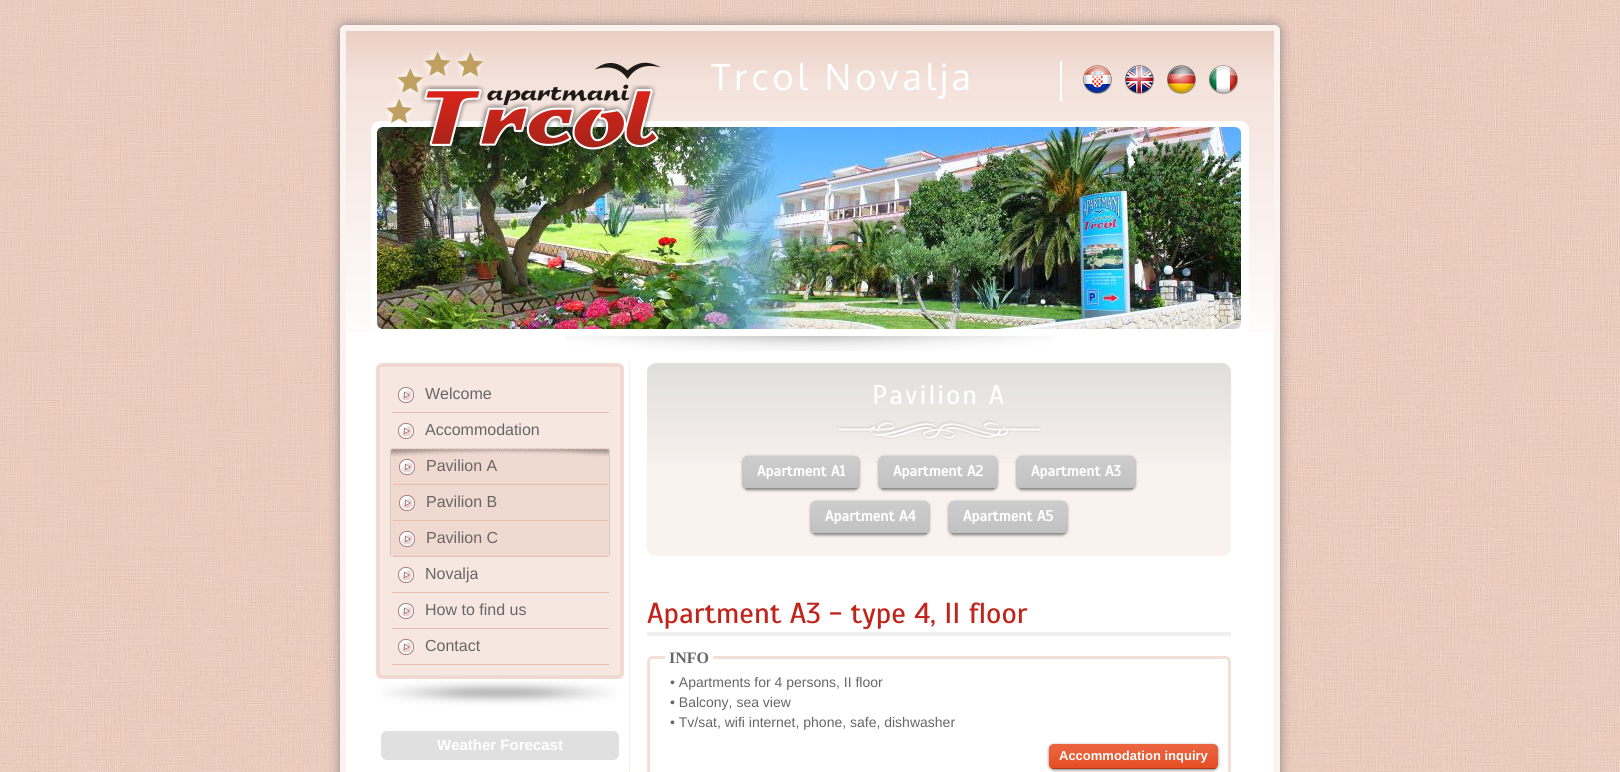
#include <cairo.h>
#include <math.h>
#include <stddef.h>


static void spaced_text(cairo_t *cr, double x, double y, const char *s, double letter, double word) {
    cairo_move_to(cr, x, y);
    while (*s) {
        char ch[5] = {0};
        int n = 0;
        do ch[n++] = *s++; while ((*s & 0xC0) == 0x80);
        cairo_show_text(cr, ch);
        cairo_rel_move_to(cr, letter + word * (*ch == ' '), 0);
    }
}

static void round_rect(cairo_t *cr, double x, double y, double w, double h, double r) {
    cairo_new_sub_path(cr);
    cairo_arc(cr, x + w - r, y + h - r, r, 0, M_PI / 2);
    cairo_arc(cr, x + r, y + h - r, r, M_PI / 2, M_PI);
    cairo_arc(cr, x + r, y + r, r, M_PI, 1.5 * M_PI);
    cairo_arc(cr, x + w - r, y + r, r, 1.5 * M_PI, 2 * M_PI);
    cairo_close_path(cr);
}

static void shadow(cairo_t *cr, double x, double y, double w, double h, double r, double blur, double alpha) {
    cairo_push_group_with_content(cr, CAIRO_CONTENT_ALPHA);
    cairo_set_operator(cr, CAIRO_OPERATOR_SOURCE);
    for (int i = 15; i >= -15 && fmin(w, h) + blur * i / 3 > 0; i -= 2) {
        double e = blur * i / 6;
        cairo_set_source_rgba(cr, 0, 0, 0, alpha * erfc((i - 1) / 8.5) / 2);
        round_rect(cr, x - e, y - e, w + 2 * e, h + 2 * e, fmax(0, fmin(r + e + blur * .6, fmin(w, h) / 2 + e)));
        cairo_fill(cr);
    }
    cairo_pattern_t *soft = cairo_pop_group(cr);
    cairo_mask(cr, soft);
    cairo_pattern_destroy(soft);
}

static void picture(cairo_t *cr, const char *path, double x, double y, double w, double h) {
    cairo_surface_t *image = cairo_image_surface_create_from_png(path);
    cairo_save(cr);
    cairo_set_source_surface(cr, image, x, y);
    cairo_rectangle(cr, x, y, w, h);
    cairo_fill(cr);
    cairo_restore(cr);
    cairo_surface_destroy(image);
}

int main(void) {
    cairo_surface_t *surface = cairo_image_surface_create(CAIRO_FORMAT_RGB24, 1620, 772);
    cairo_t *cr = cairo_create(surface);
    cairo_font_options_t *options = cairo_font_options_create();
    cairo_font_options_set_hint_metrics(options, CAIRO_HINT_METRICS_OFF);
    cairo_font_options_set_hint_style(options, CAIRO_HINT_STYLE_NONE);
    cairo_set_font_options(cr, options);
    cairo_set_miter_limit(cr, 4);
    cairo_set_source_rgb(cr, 1, 1, 1);
    cairo_paint(cr);
    picture(cr, "img1.png", 0, 0, 1620, 772);
    cairo_set_source_rgb(cr, 0.533, 0.533, 0.533);
    shadow(cr, 340, 25, 940, 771, 6, 6, 1);
    cairo_set_source_rgb(cr, 1, 1, 1);
    round_rect(cr, 340, 25, 940, 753, 6);
    cairo_fill(cr);
    picture(cr, "img2.png", 346, 31, 928, 301);
    round_rect(cr, 343, 28, 934, 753, 3);
    cairo_set_source_rgb(cr, 0.984, 0.953, 0.941);
    cairo_set_line_width(cr, 6);
    cairo_stroke(cr);
    cairo_set_source_rgb(cr, 1, 1, 1);
    round_rect(cr, 371, 121, 878, 215, 9);
    cairo_fill(cr);
    picture(cr, "img8.png", 377, 127, 864, 202);
    picture(cr, "img3.png", 386, 50, 275, 103);
    cairo_select_font_face(cr, "Oxygen", CAIRO_FONT_SLANT_NORMAL, CAIRO_FONT_WEIGHT_NORMAL);
    cairo_set_font_size(cr, 36);
    spaced_text(cr, 711, 90, "Trcol Novalja", 4, 0);
    cairo_rectangle(cr, 1060, 61, 2, 40);
    cairo_fill(cr);
    picture(cr, "img4.png", 1083, 65, 29, 30);
    picture(cr, "img5.png", 1125, 65, 29, 30);
    picture(cr, "img6.png", 1167, 65, 29, 30);
    picture(cr, "img7.png", 1209, 65, 29, 30);
    picture(cr, "img9.png", 565, 336, 489, 15);
    cairo_new_path(cr);
    cairo_move_to(cr, 629.5, 363);
    cairo_line_to(cr, 629.5, 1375);
    cairo_set_source_rgb(cr, 0.922, 0.894, 0.824);
    cairo_set_line_width(cr, 1);
    cairo_set_dash(cr, (double[]){1, 1}, 2, 0);
    cairo_stroke(cr);
    cairo_set_source_rgb(cr, 0.961, 0.906, 0.882);
    round_rect(cr, 378, 365, 244, 312, 4);
    cairo_fill_preserve(cr);
    cairo_set_source_rgb(cr, 0.941, 0.851, 0.816);
    cairo_set_line_width(cr, 4);
    cairo_set_dash(cr, NULL, 0, 0);
    cairo_stroke(cr);
    picture(cr, "img10.png", 398, 387, 16, 16);
    cairo_set_source_rgb(cr, 0.902, 0.741, 0.682);
    cairo_rectangle(cr, 392, 412, 217, 1);
    cairo_fill(cr);
    cairo_select_font_face(cr, "Liberation Sans", CAIRO_FONT_SLANT_NORMAL, CAIRO_FONT_WEIGHT_NORMAL);
    cairo_set_font_size(cr, 16);
    cairo_set_source_rgb(cr, 0.4, 0.4, 0.4);
    cairo_move_to(cr, 425, 399);
    cairo_show_text(cr, "Welcome");
    picture(cr, "img10.png", 398, 423, 16, 16);
    cairo_new_path(cr);
    cairo_move_to(cr, 390, 448.5);
    cairo_line_to(cr, 610, 448.5);
    cairo_set_source_rgb(cr, 0.902, 0.741, 0.682);
    cairo_set_line_width(cr, 1);
    cairo_set_dash(cr, (double[]){1, 1}, 2, 0);
    cairo_stroke(cr);
    cairo_set_source_rgb(cr, 0.4, 0.4, 0.4);
    cairo_move_to(cr, 425, 435);
    cairo_show_text(cr, "Accommodation");
    cairo_set_source_rgb(cr, 0.941, 0.851, 0.816);
    cairo_new_path(cr);
    cairo_move_to(cr, 393, 449);
    cairo_line_to(cr, 607, 449);
    cairo_curve_to(cr, 608, 449, 609, 450, 609, 452);
    cairo_line_to(cr, 609, 554);
    cairo_curve_to(cr, 609, 556, 608, 557, 607, 557);
    cairo_line_to(cr, 393, 557);
    cairo_curve_to(cr, 392, 557, 391, 556, 391, 554);
    cairo_line_to(cr, 391, 452);
    cairo_curve_to(cr, 391, 450, 392, 449, 393, 449);
    cairo_close_path(cr);
    cairo_fill(cr);
    picture(cr, "img11.png", 390, 449, 220, 8);
    cairo_set_source_rgb(cr, 0.859, 0.792, 0.769);
    cairo_rectangle(cr, 609, 451, 1, 105);
    cairo_fill(cr);
    cairo_rectangle(cr, 390, 451, 1, 105);
    cairo_fill(cr);
    picture(cr, "img12.png", 399, 459, 16, 16);
    cairo_set_source_rgb(cr, 0.902, 0.741, 0.682);
    cairo_rectangle(cr, 393, 484, 215, 1);
    cairo_fill(cr);
    cairo_set_source_rgb(cr, 0.4, 0.4, 0.4);
    cairo_move_to(cr, 426, 471);
    cairo_show_text(cr, "Pavilion A");
    picture(cr, "img12.png", 399, 495, 16, 16);
    cairo_set_source_rgb(cr, 0.902, 0.741, 0.682);
    cairo_rectangle(cr, 393, 520, 215, 1);
    cairo_fill(cr);
    cairo_set_source_rgb(cr, 0.4, 0.4, 0.4);
    cairo_move_to(cr, 426, 507);
    cairo_show_text(cr, "Pavilion B");
    picture(cr, "img12.png", 399, 531, 16, 16);
    cairo_set_source_rgb(cr, 0.902, 0.741, 0.682);
    cairo_rectangle(cr, 393, 556, 215, 1);
    cairo_fill(cr);
    cairo_set_source_rgb(cr, 0.4, 0.4, 0.4);
    cairo_move_to(cr, 426, 543);
    cairo_show_text(cr, "Pavilion C");
    picture(cr, "img10.png", 398, 567, 16, 16);
    cairo_set_source_rgb(cr, 0.902, 0.741, 0.682);
    cairo_rectangle(cr, 392, 592, 217, 1);
    cairo_fill(cr);
    cairo_set_source_rgb(cr, 0.4, 0.4, 0.4);
    cairo_move_to(cr, 425, 579);
    cairo_show_text(cr, "Novalja");
    picture(cr, "img10.png", 398, 603, 16, 16);
    cairo_set_source_rgb(cr, 0.902, 0.741, 0.682);
    cairo_rectangle(cr, 392, 628, 217, 1);
    cairo_fill(cr);
    cairo_set_source_rgb(cr, 0.4, 0.4, 0.4);
    cairo_move_to(cr, 425, 615);
    cairo_show_text(cr, "How to find us");
    picture(cr, "img10.png", 398, 639, 16, 16);
    cairo_set_source_rgb(cr, 0.902, 0.741, 0.682);
    cairo_rectangle(cr, 392, 664, 217, 1);
    cairo_fill(cr);
    cairo_set_source_rgb(cr, 0.4, 0.4, 0.4);
    cairo_move_to(cr, 425, 651);
    cairo_show_text(cr, "Contact");
    picture(cr, "img13.png", 381, 679, 236, 27);
    cairo_set_source_rgb(cr, 0.878, 0.878, 0.878);
    round_rect(cr, 381, 731, 238, 29, 6);
    cairo_fill(cr);
    cairo_select_font_face(cr, "Liberation Sans", CAIRO_FONT_SLANT_NORMAL, CAIRO_FONT_WEIGHT_BOLD);
    cairo_set_font_size(cr, 15);
    cairo_set_source_rgb(cr, 1, 1, 1);
    cairo_move_to(cr, 437, 750);
    cairo_show_text(cr, "Weather Forecast");
    cairo_set_source_rgb(cr, 0.98, 0.949, 0.937);
    round_rect(cr, 647, 363, 584, 193, 9);
    cairo_fill(cr);
    picture(cr, "img14.png", 647, 363, 584, 100);
    cairo_select_font_face(cr, "Scada", CAIRO_FONT_SLANT_NORMAL, CAIRO_FONT_WEIGHT_NORMAL);
    cairo_set_font_size(cr, 27);
    cairo_set_source_rgb(cr, 1, 1, 1);
    spaced_text(cr, 872, 404, "Pavilion A", 2, 0);
    picture(cr, "img15.png", 837, 420, 204, 20);
    cairo_set_source_rgb(cr, 0, 0, 0);
    shadow(cr, 743, 457, 116, 33, 5, 1.5, 0.5);
    cairo_set_source_rgb(cr, 0.733, 0.733, 0.733);
    round_rect(cr, 743, 456, 116, 33, 5);
    cairo_fill(cr);
    picture(cr, "img16.png", 743, 456, 116, 33);
    cairo_set_source_rgba(cr, 0, 0, 0, 0.25);
    cairo_rectangle(cr, 746, 488, 111, 1);
    cairo_fill(cr);
    cairo_select_font_face(cr, "Scada", CAIRO_FONT_SLANT_NORMAL, CAIRO_FONT_WEIGHT_BOLD);
    cairo_set_font_size(cr, 15);
    cairo_set_source_rgb(cr, 1, 1, 1);
    cairo_move_to(cr, 757, 476);
    cairo_show_text(cr, "Apartment A1");
    cairo_set_source_rgb(cr, 0, 0, 0);
    shadow(cr, 879, 457, 118, 33, 5, 1.5, 0.5);
    cairo_set_source_rgb(cr, 0.733, 0.733, 0.733);
    round_rect(cr, 879, 456, 118, 33, 5);
    cairo_fill(cr);
    picture(cr, "img17.png", 879, 456, 118, 33);
    cairo_set_source_rgba(cr, 0, 0, 0, 0.25);
    cairo_rectangle(cr, 882, 488, 113, 1);
    cairo_fill(cr);
    cairo_set_source_rgb(cr, 1, 1, 1);
    cairo_move_to(cr, 893, 476);
    cairo_show_text(cr, "Apartment A2");
    cairo_set_source_rgb(cr, 0, 0, 0);
    shadow(cr, 1017, 457, 118, 33, 5, 1.5, 0.5);
    cairo_set_source_rgb(cr, 0.733, 0.733, 0.733);
    round_rect(cr, 1017, 456, 118, 33, 5);
    cairo_fill(cr);
    picture(cr, "img17.png", 1017, 456, 118, 33);
    cairo_set_source_rgba(cr, 0, 0, 0, 0.25);
    cairo_rectangle(cr, 1020, 488, 113, 1);
    cairo_fill(cr);
    cairo_set_source_rgb(cr, 1, 1, 1);
    cairo_move_to(cr, 1031, 476);
    cairo_show_text(cr, "Apartment A3");
    cairo_set_source_rgb(cr, 0, 0, 0);
    shadow(cr, 811, 502, 118, 33, 5, 1.5, 0.5);
    cairo_set_source_rgb(cr, 0.733, 0.733, 0.733);
    round_rect(cr, 811, 501, 118, 33, 5);
    cairo_fill(cr);
    picture(cr, "img18.png", 811, 501, 118, 33);
    cairo_set_source_rgba(cr, 0, 0, 0, 0.25);
    cairo_rectangle(cr, 814, 533, 113, 1);
    cairo_fill(cr);
    cairo_set_source_rgb(cr, 1, 1, 1);
    cairo_move_to(cr, 825, 521);
    cairo_show_text(cr, "Apartment A4");
    cairo_set_source_rgb(cr, 0, 0, 0);
    shadow(cr, 949, 502, 118, 33, 5, 1.5, 0.5);
    cairo_set_source_rgb(cr, 0.733, 0.733, 0.733);
    round_rect(cr, 949, 501, 118, 33, 5);
    cairo_fill(cr);
    picture(cr, "img18.png", 949, 501, 118, 33);
    cairo_set_source_rgba(cr, 0, 0, 0, 0.25);
    cairo_rectangle(cr, 952, 533, 113, 1);
    cairo_fill(cr);
    cairo_set_source_rgb(cr, 1, 1, 1);
    cairo_move_to(cr, 963, 521);
    cairo_show_text(cr, "Apartment A5");
    cairo_set_source_rgb(cr, 0.941, 0.941, 0.941);
    cairo_rectangle(cr, 647, 632, 584, 4);
    cairo_fill(cr);
    cairo_select_font_face(cr, "Scada", CAIRO_FONT_SLANT_NORMAL, CAIRO_FONT_WEIGHT_NORMAL);
    cairo_set_font_size(cr, 29);
    cairo_set_source_rgb(cr, 0.753, 0.141, 0.102);
    cairo_move_to(cr, 647, 623);
    cairo_show_text(cr, "Apartment A3 - type 4, II floor");
    round_rect(cr, 648.5, 657.5, 581, 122, 4.5);
    cairo_set_source_rgb(cr, 0.949, 0.875, 0.843);
    cairo_set_line_width(cr, 3);
    cairo_set_dash(cr, NULL, 0, 0);
    cairo_stroke(cr);
    cairo_set_source_rgb(cr, 1, 1, 1);
    cairo_rectangle(cr, 665, 656, 48, 3);
    cairo_fill(cr);
    cairo_select_font_face(cr, "Liberation Serif", CAIRO_FONT_SLANT_NORMAL, CAIRO_FONT_WEIGHT_BOLD);
    cairo_set_font_size(cr, 16);
    cairo_set_source_rgb(cr, 0.4, 0.4, 0.4);
    cairo_move_to(cr, 669, 663);
    cairo_show_text(cr, "INFO");
    cairo_select_font_face(cr, "Liberation Sans", CAIRO_FONT_SLANT_NORMAL, CAIRO_FONT_WEIGHT_NORMAL);
    cairo_set_font_size(cr, 14);
    cairo_move_to(cr, 670, 687);
    cairo_show_text(cr, "• Apartments for 4 persons, II floor");
    cairo_move_to(cr, 670, 707);
    cairo_show_text(cr, "• Balcony, sea view");
    cairo_move_to(cr, 670, 727);
    cairo_show_text(cr, "• Tv/sat, wifi internet, phone, safe, dishwasher");
    cairo_set_source_rgb(cr, 0, 0, 0);
    shadow(cr, 1049, 745, 169, 25, 5, 1.5, 0.5);
    cairo_set_source_rgb(cr, 0.89, 0.192, 0);
    round_rect(cr, 1049, 744, 169, 25, 5);
    cairo_fill(cr);
    picture(cr, "img19.png", 1049, 744, 169, 25);
    cairo_set_source_rgba(cr, 0, 0, 0, 0.25);
    cairo_rectangle(cr, 1052, 768, 164, 1);
    cairo_fill(cr);
    cairo_select_font_face(cr, "Liberation Sans", CAIRO_FONT_SLANT_NORMAL, CAIRO_FONT_WEIGHT_BOLD);
    cairo_set_font_size(cr, 13);
    cairo_set_source_rgb(cr, 1, 1, 1);
    cairo_move_to(cr, 1059, 760);
    cairo_show_text(cr, "Accommodation inquiry");
    cairo_surface_write_to_png(surface, "page.png");
    cairo_font_options_destroy(options);
    cairo_destroy(cr);
    cairo_surface_destroy(surface);
    return 0;
}
